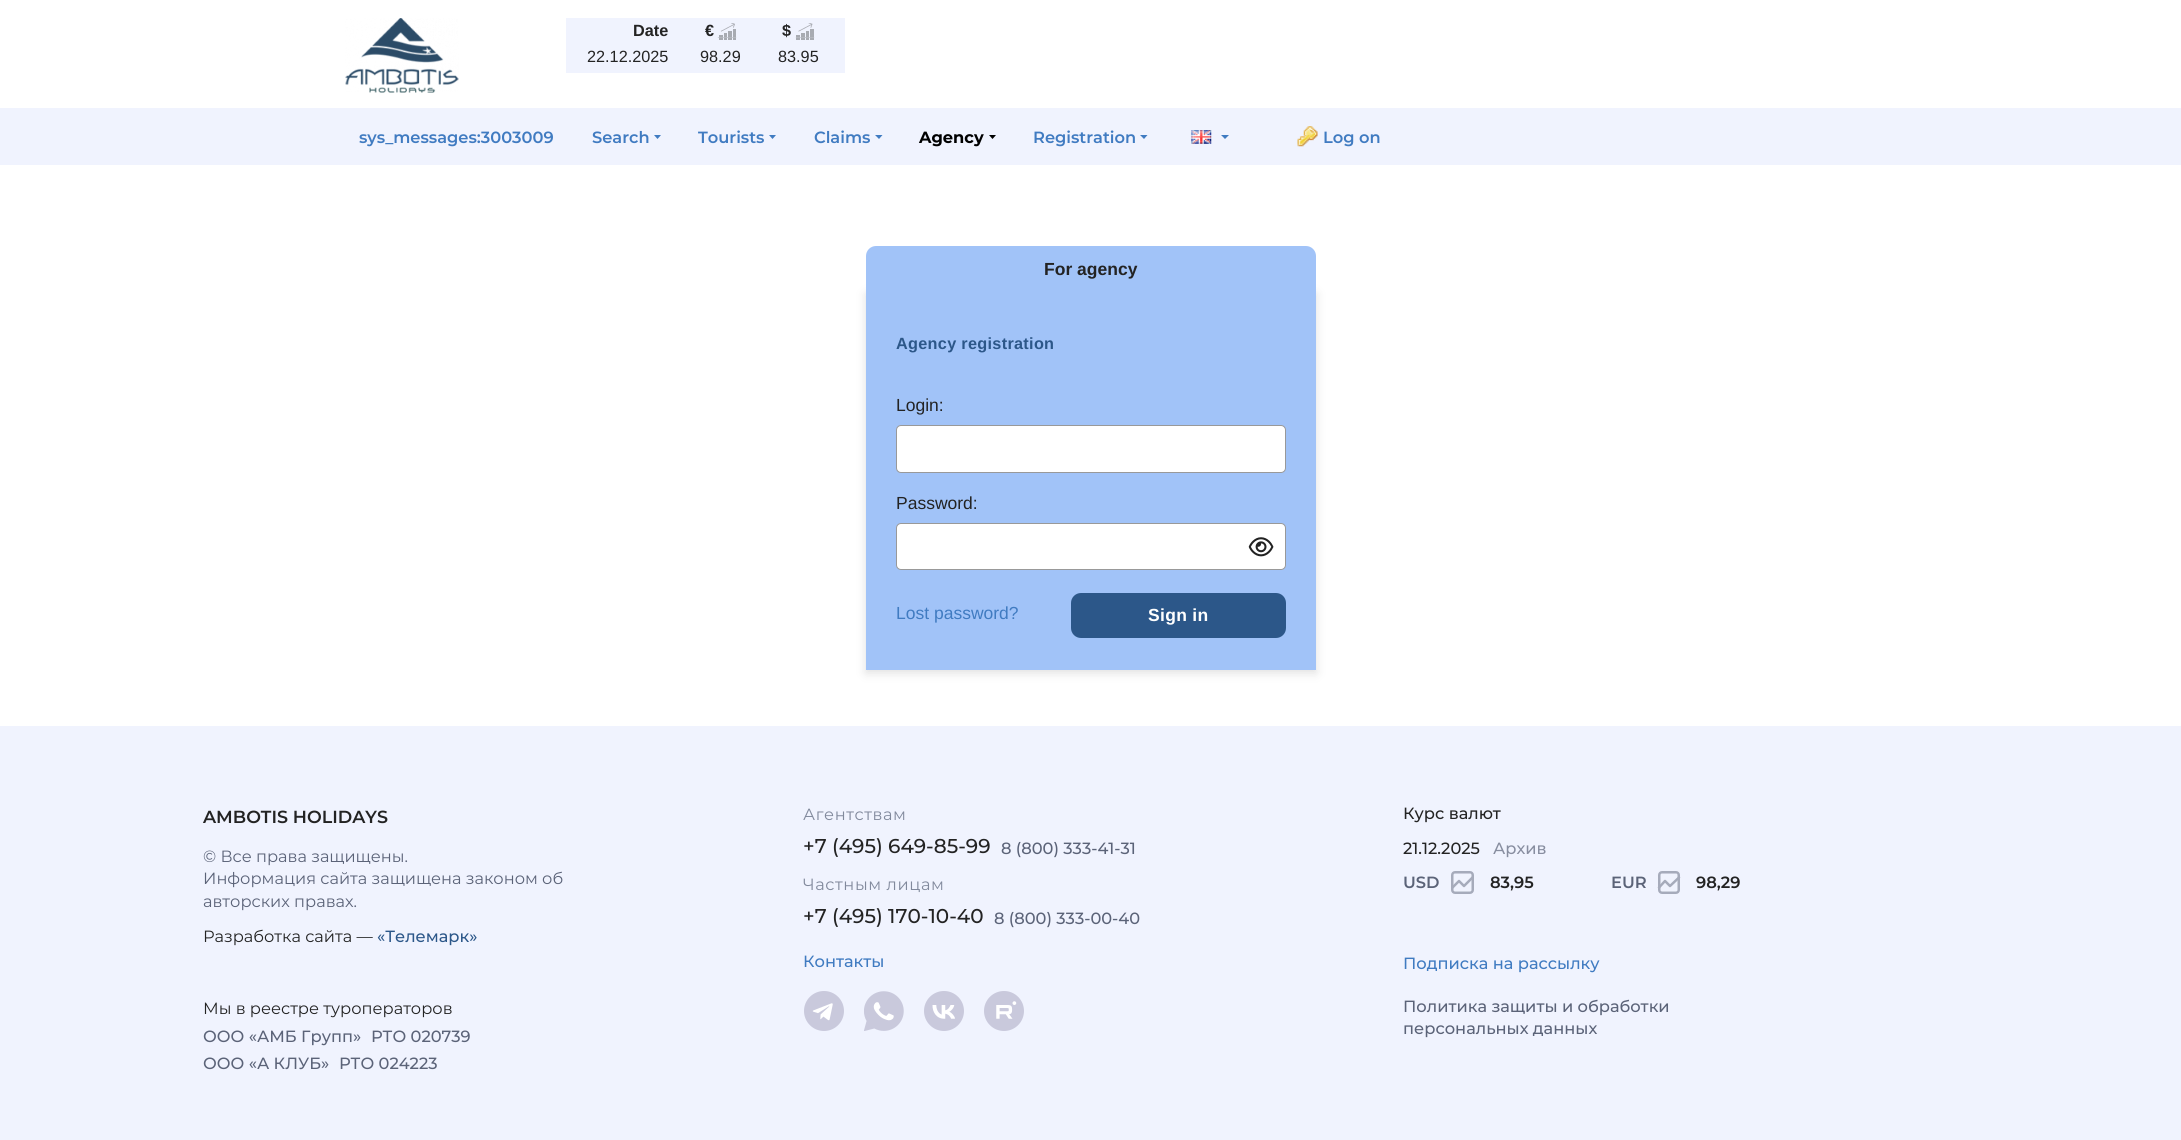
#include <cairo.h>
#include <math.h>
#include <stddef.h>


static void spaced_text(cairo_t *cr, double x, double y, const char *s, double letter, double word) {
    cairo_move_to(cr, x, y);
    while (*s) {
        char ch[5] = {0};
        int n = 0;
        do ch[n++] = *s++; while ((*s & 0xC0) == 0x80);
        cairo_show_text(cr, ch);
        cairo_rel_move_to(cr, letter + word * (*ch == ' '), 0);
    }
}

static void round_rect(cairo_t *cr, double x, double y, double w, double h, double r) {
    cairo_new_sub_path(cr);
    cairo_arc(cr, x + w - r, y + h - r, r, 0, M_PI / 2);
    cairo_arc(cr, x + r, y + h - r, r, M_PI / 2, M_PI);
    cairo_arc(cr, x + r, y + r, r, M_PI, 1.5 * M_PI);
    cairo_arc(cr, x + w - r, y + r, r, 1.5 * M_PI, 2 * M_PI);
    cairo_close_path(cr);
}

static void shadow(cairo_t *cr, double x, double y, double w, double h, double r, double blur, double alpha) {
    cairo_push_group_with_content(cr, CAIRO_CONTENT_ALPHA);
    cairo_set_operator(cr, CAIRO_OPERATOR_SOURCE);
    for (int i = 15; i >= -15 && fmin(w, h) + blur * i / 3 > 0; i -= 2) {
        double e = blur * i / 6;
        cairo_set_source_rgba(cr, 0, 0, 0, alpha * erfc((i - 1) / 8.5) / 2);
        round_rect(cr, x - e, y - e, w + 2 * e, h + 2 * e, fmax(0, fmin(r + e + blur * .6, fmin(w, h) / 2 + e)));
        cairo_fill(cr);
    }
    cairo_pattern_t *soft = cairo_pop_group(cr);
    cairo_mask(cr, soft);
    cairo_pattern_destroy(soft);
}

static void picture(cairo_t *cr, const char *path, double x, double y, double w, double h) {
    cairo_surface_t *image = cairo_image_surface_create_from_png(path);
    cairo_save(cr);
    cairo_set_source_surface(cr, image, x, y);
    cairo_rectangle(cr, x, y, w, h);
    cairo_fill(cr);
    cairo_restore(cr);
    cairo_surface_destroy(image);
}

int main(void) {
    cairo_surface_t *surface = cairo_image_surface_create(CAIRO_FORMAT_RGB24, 2181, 1140);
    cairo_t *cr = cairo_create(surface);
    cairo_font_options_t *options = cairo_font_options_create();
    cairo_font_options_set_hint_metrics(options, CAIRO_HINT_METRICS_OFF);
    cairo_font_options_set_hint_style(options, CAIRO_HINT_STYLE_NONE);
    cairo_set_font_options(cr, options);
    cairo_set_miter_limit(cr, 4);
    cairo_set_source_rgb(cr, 1, 1, 1);
    cairo_paint(cr);
    picture(cr, "img1.png", 345, 18, 114, 75);
    cairo_set_source_rgb(cr, 0.941, 0.953, 0.996);
    cairo_rectangle(cr, 566, 18, 279, 55);
    cairo_fill(cr);
    cairo_select_font_face(cr, "Liberation Sans", CAIRO_FONT_SLANT_NORMAL, CAIRO_FONT_WEIGHT_BOLD);
    cairo_set_font_size(cr, 16.25);
    cairo_set_source_rgb(cr, 0.137, 0.137, 0.137);
    cairo_move_to(cr, 633, 36);
    cairo_show_text(cr, "Date");
    cairo_move_to(cr, 705, 36);
    cairo_show_text(cr, "€");
    picture(cr, "img2.png", 719, 23, 17, 17);
    cairo_set_source_rgb(cr, 0.733, 0.745, 0.776);
    cairo_move_to(cr, 718, 36);
    cairo_show_text(cr, "__");
    cairo_set_source_rgb(cr, 0.137, 0.137, 0.137);
    cairo_move_to(cr, 782, 36);
    cairo_show_text(cr, "$");
    picture(cr, "img3.png", 796, 23, 18, 17);
    cairo_set_source_rgb(cr, 0.733, 0.745, 0.776);
    cairo_move_to(cr, 796, 36);
    cairo_show_text(cr, "__");
    cairo_select_font_face(cr, "Liberation Sans", CAIRO_FONT_SLANT_NORMAL, CAIRO_FONT_WEIGHT_NORMAL);
    cairo_set_source_rgb(cr, 0.137, 0.137, 0.137);
    cairo_move_to(cr, 587, 62);
    cairo_show_text(cr, "22.12.2025");
    cairo_move_to(cr, 700, 62);
    cairo_show_text(cr, "98.29");
    cairo_move_to(cr, 778, 62);
    cairo_show_text(cr, "83.95");
    cairo_set_source_rgb(cr, 0.941, 0.953, 0.996);
    cairo_rectangle(cr, 0, 108, 2181, 57);
    cairo_fill(cr);
    cairo_select_font_face(cr, "Montserrat SemiBold", CAIRO_FONT_SLANT_NORMAL, CAIRO_FONT_WEIGHT_NORMAL);
    cairo_set_source_rgb(cr, 0.251, 0.482, 0.757);
    cairo_move_to(cr, 359, 143);
    cairo_show_text(cr, "sys_messages:3003009");
    cairo_move_to(cr, 592, 143);
    cairo_show_text(cr, "Search");
    cairo_new_path(cr);
    cairo_move_to(cr, 654, 135);
    cairo_line_to(cr, 661, 135);
    cairo_line_to(cr, 657.5, 139);
    cairo_close_path(cr);
    cairo_fill(cr);
    cairo_move_to(cr, 698, 143);
    cairo_show_text(cr, "Tourists");
    cairo_new_path(cr);
    cairo_move_to(cr, 769, 135);
    cairo_line_to(cr, 776, 135);
    cairo_line_to(cr, 772.5, 139);
    cairo_close_path(cr);
    cairo_fill(cr);
    cairo_move_to(cr, 814, 143);
    cairo_show_text(cr, "Claims");
    cairo_new_path(cr);
    cairo_move_to(cr, 875, 135);
    cairo_line_to(cr, 882.5, 135);
    cairo_line_to(cr, 879, 139);
    cairo_close_path(cr);
    cairo_fill(cr);
    cairo_select_font_face(cr, "Montserrat", CAIRO_FONT_SLANT_NORMAL, CAIRO_FONT_WEIGHT_BOLD);
    cairo_set_source_rgb(cr, 0, 0, 0);
    cairo_move_to(cr, 919, 143);
    cairo_show_text(cr, "Agency");
    cairo_new_path(cr);
    cairo_move_to(cr, 989, 135);
    cairo_line_to(cr, 996, 135);
    cairo_line_to(cr, 992.5, 139);
    cairo_close_path(cr);
    cairo_fill(cr);
    cairo_select_font_face(cr, "Montserrat SemiBold", CAIRO_FONT_SLANT_NORMAL, CAIRO_FONT_WEIGHT_NORMAL);
    cairo_set_source_rgb(cr, 0.251, 0.482, 0.757);
    cairo_move_to(cr, 1033, 143);
    cairo_show_text(cr, "Registration");
    cairo_new_path(cr);
    cairo_move_to(cr, 1140, 135);
    cairo_line_to(cr, 1147.5, 135);
    cairo_line_to(cr, 1144, 139);
    cairo_close_path(cr);
    cairo_fill(cr);
    picture(cr, "img4.png", 1191, 130, 21, 14);
    cairo_new_path(cr);
    cairo_move_to(cr, 1221, 135);
    cairo_line_to(cr, 1229, 135);
    cairo_line_to(cr, 1225, 139);
    cairo_close_path(cr);
    cairo_fill(cr);
    picture(cr, "img5.png", 1297, 126, 21, 21);
    cairo_move_to(cr, 1323, 143);
    cairo_show_text(cr, "Log on");
    cairo_set_source_rgb(cr, 0.878, 0.878, 0.878);
    shadow(cr, 866, 294, 450, 379, 0, 5, 1);
    cairo_set_source_rgb(cr, 0.631, 0.765, 0.969);
    cairo_new_path(cr);
    cairo_move_to(cr, 876, 246);
    cairo_line_to(cr, 1306, 246);
    cairo_curve_to(cr, 1311.5, 246, 1316, 250.5, 1316, 256);
    cairo_line_to(cr, 1316, 291);
    cairo_line_to(cr, 866, 291);
    cairo_line_to(cr, 866, 256);
    cairo_curve_to(cr, 866, 250.5, 870.5, 246, 876, 246);
    cairo_close_path(cr);
    cairo_fill(cr);
    cairo_select_font_face(cr, "Liberation Sans", CAIRO_FONT_SLANT_NORMAL, CAIRO_FONT_WEIGHT_BOLD);
    cairo_set_font_size(cr, 17.5);
    cairo_set_source_rgb(cr, 0.137, 0.137, 0.137);
    cairo_move_to(cr, 1044, 275);
    cairo_show_text(cr, "For agency");
    cairo_set_source_rgb(cr, 0.631, 0.765, 0.969);
    cairo_rectangle(cr, 866, 291, 450, 379);
    cairo_fill(cr);
    cairo_set_font_size(cr, 16.25);
    cairo_set_source_rgb(cr, 0.173, 0.341, 0.537);
    spaced_text(cr, 896, 349, "Agency registration", 0.3, 0);
    cairo_select_font_face(cr, "Liberation Sans", CAIRO_FONT_SLANT_NORMAL, CAIRO_FONT_WEIGHT_NORMAL);
    cairo_set_font_size(cr, 17.5);
    cairo_set_source_rgb(cr, 0.137, 0.137, 0.137);
    cairo_move_to(cr, 896, 411);
    cairo_show_text(cr, "Login:");
    cairo_set_source_rgb(cr, 1, 1, 1);
    round_rect(cr, 896.5, 425.5, 389, 47, 4.5);
    cairo_fill_preserve(cr);
    cairo_set_source_rgb(cr, 0.6, 0.6, 0.6);
    cairo_set_line_width(cr, 1);
    cairo_stroke(cr);
    cairo_set_source_rgb(cr, 0.137, 0.137, 0.137);
    cairo_move_to(cr, 896, 509);
    cairo_show_text(cr, "Password:");
    cairo_set_source_rgb(cr, 1, 1, 1);
    round_rect(cr, 896.5, 523.5, 389, 46, 4.5);
    cairo_fill_preserve(cr);
    cairo_set_source_rgb(cr, 0.6, 0.6, 0.6);
    cairo_stroke(cr);
    picture(cr, "img6.png", 1248, 537, 26, 20);
    cairo_set_source_rgb(cr, 0.251, 0.482, 0.757);
    cairo_move_to(cr, 896, 619);
    cairo_show_text(cr, "Lost password?");
    cairo_set_source_rgb(cr, 0.173, 0.341, 0.537);
    round_rect(cr, 1071, 593, 215, 45, 10);
    cairo_fill(cr);
    cairo_select_font_face(cr, "Liberation Sans", CAIRO_FONT_SLANT_NORMAL, CAIRO_FONT_WEIGHT_BOLD);
    cairo_set_source_rgb(cr, 1, 1, 1);
    spaced_text(cr, 1148, 621, "Sign in", 0.3, 0);
    cairo_set_source_rgb(cr, 0.941, 0.953, 0.996);
    cairo_rectangle(cr, 0, 726, 2181, 414);
    cairo_fill(cr);
    cairo_select_font_face(cr, "Montserrat SemiBold", CAIRO_FONT_SLANT_NORMAL, CAIRO_FONT_WEIGHT_NORMAL);
    cairo_set_source_rgb(cr, 0.137, 0.137, 0.137);
    cairo_move_to(cr, 203, 823);
    cairo_show_text(cr, "AMBOTIS HOLIDAYS");
    cairo_select_font_face(cr, "Montserrat", CAIRO_FONT_SLANT_NORMAL, CAIRO_FONT_WEIGHT_NORMAL);
    cairo_set_font_size(cr, 16.25);
    cairo_set_source_rgb(cr, 0.357, 0.388, 0.471);
    cairo_move_to(cr, 203, 862);
    cairo_show_text(cr, "© Все права защищены.");
    cairo_move_to(cr, 203, 884);
    cairo_show_text(cr, "Информация сайта защищена законом об");
    cairo_move_to(cr, 203, 907);
    cairo_show_text(cr, "авторских правах.");
    cairo_set_source_rgb(cr, 0.137, 0.137, 0.137);
    cairo_move_to(cr, 203, 942);
    cairo_show_text(cr, "Разработка сайта —");
    cairo_select_font_face(cr, "Montserrat Medium", CAIRO_FONT_SLANT_NORMAL, CAIRO_FONT_WEIGHT_NORMAL);
    cairo_set_source_rgb(cr, 0.173, 0.341, 0.537);
    cairo_move_to(cr, 377, 942);
    cairo_show_text(cr, "«Телемарк»");
    cairo_select_font_face(cr, "Montserrat", CAIRO_FONT_SLANT_NORMAL, CAIRO_FONT_WEIGHT_NORMAL);
    cairo_set_source_rgb(cr, 0.137, 0.137, 0.137);
    cairo_move_to(cr, 203, 1014);
    cairo_show_text(cr, "Мы в реестре туроператоров");
    cairo_select_font_face(cr, "Montserrat Medium", CAIRO_FONT_SLANT_NORMAL, CAIRO_FONT_WEIGHT_NORMAL);
    cairo_set_source_rgb(cr, 0.357, 0.388, 0.471);
    cairo_move_to(cr, 203, 1042);
    cairo_show_text(cr, "ООО «АМБ Групп»");
    cairo_move_to(cr, 371, 1042);
    cairo_show_text(cr, "РТО 020739");
    cairo_move_to(cr, 203, 1069);
    cairo_show_text(cr, "ООО «А КЛУБ»");
    cairo_move_to(cr, 339, 1069);
    cairo_show_text(cr, "РТО 024223");
    cairo_select_font_face(cr, "Montserrat", CAIRO_FONT_SLANT_NORMAL, CAIRO_FONT_WEIGHT_NORMAL);
    cairo_set_source_rgb(cr, 0.506, 0.537, 0.612);
    spaced_text(cr, 803, 820, "Агентствам", 0.6, 0);
    cairo_select_font_face(cr, "Montserrat Medium", CAIRO_FONT_SLANT_NORMAL, CAIRO_FONT_WEIGHT_NORMAL);
    cairo_set_font_size(cr, 20);
    cairo_set_source_rgb(cr, 0.137, 0.137, 0.137);
    cairo_move_to(cr, 803, 853);
    cairo_show_text(cr, "+7 (495) 649-85-99");
    cairo_set_font_size(cr, 16.25);
    cairo_set_source_rgb(cr, 0.357, 0.388, 0.471);
    cairo_move_to(cr, 1001, 854);
    cairo_show_text(cr, "8 (800) 333-41-31");
    cairo_select_font_face(cr, "Montserrat", CAIRO_FONT_SLANT_NORMAL, CAIRO_FONT_WEIGHT_NORMAL);
    cairo_set_source_rgb(cr, 0.506, 0.537, 0.612);
    spaced_text(cr, 803, 890, "Частным лицам", 0.6, 0);
    cairo_select_font_face(cr, "Montserrat Medium", CAIRO_FONT_SLANT_NORMAL, CAIRO_FONT_WEIGHT_NORMAL);
    cairo_set_font_size(cr, 20);
    cairo_set_source_rgb(cr, 0.137, 0.137, 0.137);
    cairo_move_to(cr, 803, 923);
    cairo_show_text(cr, "+7 (495) 170-10-40");
    cairo_set_font_size(cr, 16.25);
    cairo_set_source_rgb(cr, 0.357, 0.388, 0.471);
    cairo_move_to(cr, 994, 924);
    cairo_show_text(cr, "8 (800) 333-00-40");
    cairo_set_source_rgb(cr, 0.251, 0.482, 0.757);
    cairo_move_to(cr, 803, 967);
    cairo_show_text(cr, "Контакты");
    picture(cr, "img7.png", 804, 991, 40, 40);
    picture(cr, "img8.png", 864, 991, 40, 40);
    picture(cr, "img9.png", 924, 991, 40, 40);
    picture(cr, "img10.png", 984, 991, 40, 40);
    cairo_set_source_rgb(cr, 0.137, 0.137, 0.137);
    cairo_move_to(cr, 1403, 819);
    cairo_show_text(cr, "Курс валют");
    cairo_move_to(cr, 1403, 854);
    cairo_show_text(cr, "21.12.2025");
    cairo_set_source_rgb(cr, 0.533, 0.557, 0.627);
    cairo_move_to(cr, 1493, 854);
    cairo_show_text(cr, "Архив");
    cairo_select_font_face(cr, "Montserrat SemiBold", CAIRO_FONT_SLANT_NORMAL, CAIRO_FONT_WEIGHT_NORMAL);
    cairo_set_source_rgb(cr, 0.357, 0.388, 0.471);
    cairo_move_to(cr, 1403, 888);
    cairo_show_text(cr, "USD");
    round_rect(cr, 1452.25, 872.25, 20.5, 20.5, 2.75);
    cairo_set_source_rgb(cr, 0.651, 0.671, 0.733);
    cairo_set_line_width(cr, 2.5);
    cairo_stroke(cr);
    cairo_new_path(cr);
    cairo_move_to(cr, 1452.5, 887.5);
    cairo_line_to(cr, 1459, 881);
    cairo_line_to(cr, 1464, 886);
    cairo_line_to(cr, 1472.5, 877.5);
    cairo_set_line_cap(cr, CAIRO_LINE_CAP_ROUND);
    cairo_set_line_join(cr, CAIRO_LINE_JOIN_ROUND);
    cairo_stroke(cr);
    cairo_set_source_rgb(cr, 0.137, 0.137, 0.137);
    cairo_move_to(cr, 1490, 888);
    cairo_show_text(cr, "83,95");
    cairo_set_source_rgb(cr, 0.357, 0.388, 0.471);
    cairo_move_to(cr, 1611, 888);
    cairo_show_text(cr, "EUR");
    round_rect(cr, 1659.25, 872.25, 19.5, 20.5, 2.75);
    cairo_set_source_rgb(cr, 0.651, 0.671, 0.733);
    cairo_set_line_cap(cr, CAIRO_LINE_CAP_BUTT);
    cairo_set_line_join(cr, CAIRO_LINE_JOIN_MITER);
    cairo_stroke(cr);
    cairo_new_path(cr);
    cairo_move_to(cr, 1659, 887.5);
    cairo_line_to(cr, 1665, 881);
    cairo_line_to(cr, 1670, 886);
    cairo_line_to(cr, 1679, 877.5);
    cairo_set_line_cap(cr, CAIRO_LINE_CAP_ROUND);
    cairo_set_line_join(cr, CAIRO_LINE_JOIN_ROUND);
    cairo_stroke(cr);
    cairo_set_source_rgb(cr, 0.137, 0.137, 0.137);
    cairo_move_to(cr, 1696, 888);
    cairo_show_text(cr, "98,29");
    cairo_select_font_face(cr, "Montserrat Medium", CAIRO_FONT_SLANT_NORMAL, CAIRO_FONT_WEIGHT_NORMAL);
    cairo_set_source_rgb(cr, 0.251, 0.482, 0.757);
    cairo_move_to(cr, 1403, 969);
    cairo_show_text(cr, "Подписка на рассылку");
    cairo_set_source_rgb(cr, 0.357, 0.388, 0.471);
    cairo_move_to(cr, 1403, 1012);
    cairo_show_text(cr, "Политика защиты и обработки");
    cairo_move_to(cr, 1403, 1034);
    cairo_show_text(cr, "персональных данных");
    cairo_surface_write_to_png(surface, "page.png");
    cairo_font_options_destroy(options);
    cairo_destroy(cr);
    cairo_surface_destroy(surface);
    return 0;
}
